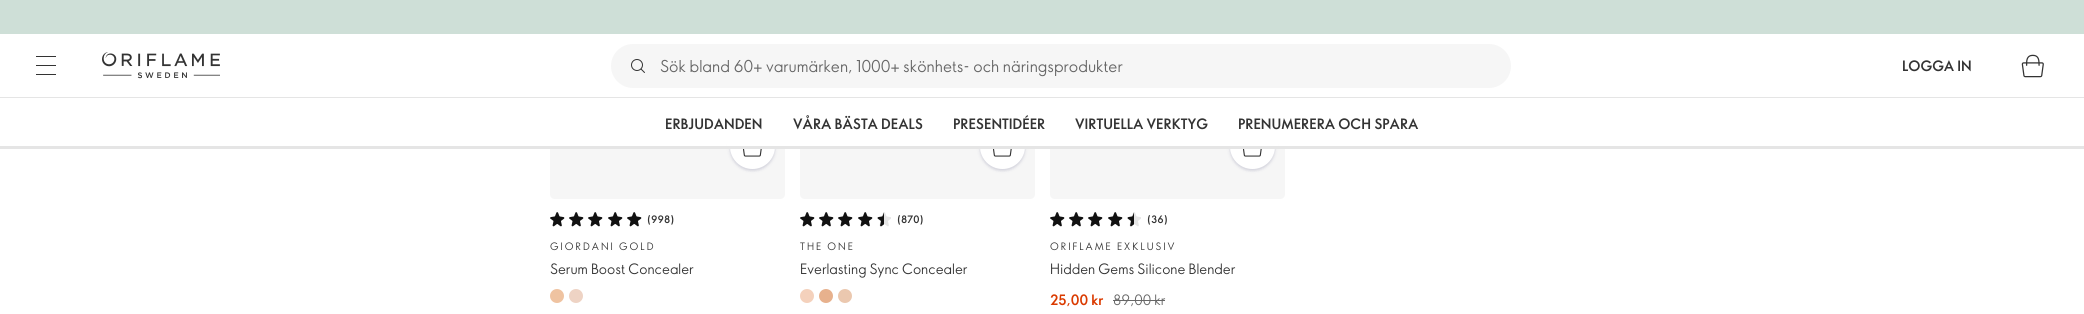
#include <cairo.h>
#include <math.h>
#include <stddef.h>


static void spaced_text(cairo_t *cr, double x, double y, const char *s, double letter, double word) {
    cairo_move_to(cr, x, y);
    while (*s) {
        char ch[5] = {0};
        int n = 0;
        do ch[n++] = *s++; while ((*s & 0xC0) == 0x80);
        cairo_show_text(cr, ch);
        cairo_rel_move_to(cr, letter + word * (*ch == ' '), 0);
    }
}

static void round_rect(cairo_t *cr, double x, double y, double w, double h, double r) {
    cairo_new_sub_path(cr);
    cairo_arc(cr, x + w - r, y + h - r, r, 0, M_PI / 2);
    cairo_arc(cr, x + r, y + h - r, r, M_PI / 2, M_PI);
    cairo_arc(cr, x + r, y + r, r, M_PI, 1.5 * M_PI);
    cairo_arc(cr, x + w - r, y + r, r, 1.5 * M_PI, 2 * M_PI);
    cairo_close_path(cr);
}

static void shadow(cairo_t *cr, double x, double y, double w, double h, double r, double blur, double alpha) {
    cairo_push_group_with_content(cr, CAIRO_CONTENT_ALPHA);
    cairo_set_operator(cr, CAIRO_OPERATOR_SOURCE);
    for (int i = 15; i >= -15 && fmin(w, h) + blur * i / 3 > 0; i -= 2) {
        double e = blur * i / 6;
        cairo_set_source_rgba(cr, 0, 0, 0, alpha * erfc((i - 1) / 8.5) / 2);
        round_rect(cr, x - e, y - e, w + 2 * e, h + 2 * e, fmax(0, fmin(r + e + blur * .6, fmin(w, h) / 2 + e)));
        cairo_fill(cr);
    }
    cairo_pattern_t *soft = cairo_pop_group(cr);
    cairo_mask(cr, soft);
    cairo_pattern_destroy(soft);
}

static void picture(cairo_t *cr, const char *path, double x, double y, double w, double h) {
    cairo_surface_t *image = cairo_image_surface_create_from_png(path);
    cairo_save(cr);
    cairo_set_source_surface(cr, image, x, y);
    cairo_rectangle(cr, x, y, w, h);
    cairo_fill(cr);
    cairo_restore(cr);
    cairo_surface_destroy(image);
}

int main(void) {
    cairo_surface_t *surface = cairo_image_surface_create(CAIRO_FORMAT_RGB24, 2084, 314);
    cairo_t *cr = cairo_create(surface);
    cairo_font_options_t *options = cairo_font_options_create();
    cairo_font_options_set_hint_metrics(options, CAIRO_HINT_METRICS_OFF);
    cairo_font_options_set_hint_style(options, CAIRO_HINT_STYLE_NONE);
    cairo_set_font_options(cr, options);
    cairo_set_miter_limit(cr, 4);
    cairo_set_source_rgb(cr, 1, 1, 1);
    cairo_paint(cr);
    cairo_set_source_rgb(cr, 0.898, 0.898, 0.898);
    cairo_rectangle(cr, 0, 97, 2084, 1);
    cairo_fill(cr);
    cairo_set_source_rgb(cr, 0.808, 0.875, 0.843);
    cairo_rectangle(cr, 0, 0, 2084, 34);
    cairo_fill(cr);
    cairo_set_source_rgb(cr, 0.2, 0.2, 0.2);
    cairo_rectangle(cr, 36, 56, 20, 1);
    cairo_fill(cr);
    cairo_rectangle(cr, 36, 65, 20, 1);
    cairo_fill(cr);
    cairo_rectangle(cr, 36, 74, 20, 1);
    cairo_fill(cr);
    picture(cr, "img1.png", 102, 52, 118, 27);
    cairo_set_source_rgb(cr, 0.961, 0.961, 0.961);
    round_rect(cr, 611, 44, 900, 44, 22);
    cairo_fill(cr);
    picture(cr, "img2.png", 631, 59, 14, 14);
    cairo_select_font_face(cr, "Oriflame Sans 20", CAIRO_FONT_SLANT_NORMAL, CAIRO_FONT_WEIGHT_NORMAL);
    cairo_set_font_size(cr, 16);
    cairo_set_source_rgb(cr, 0.4, 0.4, 0.4);
    cairo_move_to(cr, 660, 72);
    cairo_show_text(cr, "Sök bland 60+ varumärken, 1000+ skönhets- och näringsprodukter");
    cairo_select_font_face(cr, "Oriflame Sans 20", CAIRO_FONT_SLANT_NORMAL, CAIRO_FONT_WEIGHT_BOLD);
    cairo_set_font_size(cr, 14);
    cairo_set_source_rgb(cr, 0.2, 0.2, 0.2);
    cairo_move_to(cr, 1902, 71);
    cairo_show_text(cr, "LOGGA IN");
    picture(cr, "img3.png", 2021, 54, 23, 24);
    cairo_set_source_rgb(cr, 0.961, 0.961, 0.961);
    cairo_rectangle(cr, 550, 149, 235, 30);
    cairo_fill(cr);
    cairo_set_source_rgb(cr, 0, 0, 0.259);
    shadow(cr, 730, 125, 45, 45, 22.5, 2.5, 0.08);
    shadow(cr, 730, 126, 45, 45, 22.5, 1, 0.08);
    cairo_set_source_rgb(cr, 1, 1, 1);
    cairo_arc(cr, 752.5, 146.5, 22.5, 0, 2 * M_PI);
    cairo_fill(cr);
    cairo_set_source_rgb(cr, 0.961, 0.961, 0.961);
    cairo_rectangle(cr, 800, 149, 235, 30);
    cairo_fill(cr);
    cairo_set_source_rgb(cr, 0, 0, 0.259);
    shadow(cr, 980, 125, 45, 45, 22.5, 2.5, 0.08);
    shadow(cr, 980, 126, 45, 45, 22.5, 1, 0.08);
    cairo_set_source_rgb(cr, 1, 1, 1);
    cairo_arc(cr, 1002.5, 146.5, 22.5, 0, 2 * M_PI);
    cairo_fill(cr);
    cairo_set_source_rgb(cr, 0.961, 0.961, 0.961);
    cairo_rectangle(cr, 1050, 149, 235, 30);
    cairo_fill(cr);
    cairo_set_source_rgb(cr, 0, 0, 0.259);
    shadow(cr, 1230, 125, 45, 45, 22.5, 2.5, 0.08);
    shadow(cr, 1230, 126, 45, 45, 22.5, 1, 0.08);
    cairo_set_source_rgb(cr, 1, 1, 1);
    cairo_arc(cr, 1252.5, 146.5, 22.5, 0, 2 * M_PI);
    cairo_fill(cr);
    cairo_rectangle(cr, 727, 122, 551, 24);
    cairo_fill(cr);
    cairo_set_source_rgb(cr, 0.2, 0.2, 0.2);
    cairo_move_to(cr, 665, 129);
    cairo_show_text(cr, "ERBJUDANDEN");
    cairo_move_to(cr, 793, 129);
    cairo_show_text(cr, "VÅRA BÄSTA DEALS");
    cairo_move_to(cr, 953, 129);
    cairo_show_text(cr, "PRESENTIDÉER");
    cairo_move_to(cr, 1075, 129);
    cairo_show_text(cr, "VIRTUELLA VERKTYG");
    cairo_move_to(cr, 1238, 129);
    cairo_show_text(cr, "PRENUMERERA OCH SPARA");
    cairo_set_source_rgb(cr, 0.898, 0.898, 0.898);
    cairo_rectangle(cr, 0, 146, 2084, 3);
    cairo_fill(cr);
    picture(cr, "img4.png", 743, 149, 19, 8);
    cairo_set_source_rgb(cr, 0.961, 0.961, 0.961);
    cairo_new_path(cr);
    cairo_move_to(cr, 550, 179);
    cairo_line_to(cr, 785, 179);
    cairo_line_to(cr, 785, 194);
    cairo_curve_to(cr, 785, 197, 783, 199, 780, 199);
    cairo_line_to(cr, 555, 199);
    cairo_curve_to(cr, 552, 199, 550, 197, 550, 194);
    cairo_close_path(cr);
    cairo_fill(cr);
    picture(cr, "img5.png", 550, 212, 15, 15);
    picture(cr, "img5.png", 569, 212, 15, 15);
    picture(cr, "img5.png", 588, 212, 15, 15);
    picture(cr, "img5.png", 608, 212, 15, 15);
    picture(cr, "img5.png", 627, 212, 15, 15);
    cairo_set_font_size(cr, 10);
    cairo_set_source_rgb(cr, 0.2, 0.2, 0.2);
    cairo_move_to(cr, 647, 223);
    cairo_show_text(cr, "(998)");
    cairo_select_font_face(cr, "Oriflame Sans 20", CAIRO_FONT_SLANT_NORMAL, CAIRO_FONT_WEIGHT_NORMAL);
    spaced_text(cr, 550, 250, "GIORDANI GOLD", 2, 0);
    cairo_set_font_size(cr, 14);
    cairo_move_to(cr, 550, 274);
    cairo_show_text(cr, "Serum Boost Concealer");
    cairo_set_source_rgb(cr, 0.937, 0.765, 0.631);
    cairo_new_path(cr);
    cairo_arc(cr, 557, 296, 7, 0, 2 * M_PI);
    cairo_fill(cr);
    cairo_set_source_rgb(cr, 0.933, 0.827, 0.769);
    cairo_arc(cr, 576, 296, 7, 0, 2 * M_PI);
    cairo_fill(cr);
    picture(cr, "img4.png", 993, 149, 19, 8);
    cairo_set_source_rgb(cr, 0.961, 0.961, 0.961);
    cairo_new_path(cr);
    cairo_move_to(cr, 800, 179);
    cairo_line_to(cr, 1035, 179);
    cairo_line_to(cr, 1035, 194);
    cairo_curve_to(cr, 1035, 197, 1033, 199, 1030, 199);
    cairo_line_to(cr, 805, 199);
    cairo_curve_to(cr, 802, 199, 800, 197, 800, 194);
    cairo_close_path(cr);
    cairo_fill(cr);
    picture(cr, "img5.png", 800, 212, 15, 15);
    picture(cr, "img5.png", 819, 212, 15, 15);
    picture(cr, "img5.png", 838, 212, 15, 15);
    picture(cr, "img5.png", 858, 212, 15, 15);
    picture(cr, "img6.png", 877, 212, 14, 15);
    picture(cr, "img7.png", 877, 212, 7, 15);
    cairo_select_font_face(cr, "Oriflame Sans 20", CAIRO_FONT_SLANT_NORMAL, CAIRO_FONT_WEIGHT_BOLD);
    cairo_set_font_size(cr, 10);
    cairo_set_source_rgb(cr, 0.2, 0.2, 0.2);
    cairo_move_to(cr, 897, 223);
    cairo_show_text(cr, "(870)");
    cairo_select_font_face(cr, "Oriflame Sans 20", CAIRO_FONT_SLANT_NORMAL, CAIRO_FONT_WEIGHT_NORMAL);
    spaced_text(cr, 800, 250, "THE ONE", 2, 0);
    cairo_set_font_size(cr, 14);
    cairo_move_to(cr, 800, 274);
    cairo_show_text(cr, "Everlasting Sync Concealer");
    cairo_set_source_rgb(cr, 0.957, 0.82, 0.737);
    cairo_new_path(cr);
    cairo_arc(cr, 807, 296, 7, 0, 2 * M_PI);
    cairo_fill(cr);
    cairo_set_source_rgb(cr, 0.906, 0.694, 0.553);
    cairo_arc(cr, 826, 296, 7, 0, 2 * M_PI);
    cairo_fill(cr);
    cairo_set_source_rgb(cr, 0.918, 0.784, 0.686);
    cairo_arc(cr, 845, 296, 7, 0, 2 * M_PI);
    cairo_fill(cr);
    picture(cr, "img4.png", 1243, 149, 19, 8);
    cairo_set_source_rgb(cr, 0.961, 0.961, 0.961);
    cairo_new_path(cr);
    cairo_move_to(cr, 1050, 179);
    cairo_line_to(cr, 1285, 179);
    cairo_line_to(cr, 1285, 194);
    cairo_curve_to(cr, 1285, 197, 1283, 199, 1280, 199);
    cairo_line_to(cr, 1055, 199);
    cairo_curve_to(cr, 1052, 199, 1050, 197, 1050, 194);
    cairo_close_path(cr);
    cairo_fill(cr);
    picture(cr, "img5.png", 1050, 212, 15, 15);
    picture(cr, "img5.png", 1069, 212, 15, 15);
    picture(cr, "img5.png", 1088, 212, 15, 15);
    picture(cr, "img5.png", 1108, 212, 15, 15);
    picture(cr, "img6.png", 1127, 212, 14, 15);
    picture(cr, "img7.png", 1127, 212, 7, 15);
    cairo_select_font_face(cr, "Oriflame Sans 20", CAIRO_FONT_SLANT_NORMAL, CAIRO_FONT_WEIGHT_BOLD);
    cairo_set_font_size(cr, 10);
    cairo_set_source_rgb(cr, 0.2, 0.2, 0.2);
    cairo_move_to(cr, 1147, 223);
    cairo_show_text(cr, "(36)");
    cairo_select_font_face(cr, "Oriflame Sans 20", CAIRO_FONT_SLANT_NORMAL, CAIRO_FONT_WEIGHT_NORMAL);
    spaced_text(cr, 1050, 250, "ORIFLAME EXKLUSIV", 2, 0);
    cairo_set_font_size(cr, 14);
    cairo_move_to(cr, 1050, 274);
    cairo_show_text(cr, "Hidden Gems Silicone Blender");
    cairo_select_font_face(cr, "Oriflame Sans 20", CAIRO_FONT_SLANT_NORMAL, CAIRO_FONT_WEIGHT_BOLD);
    cairo_set_source_rgb(cr, 0.855, 0.227, 0);
    cairo_move_to(cr, 1050, 305);
    cairo_show_text(cr, "25,00 kr");
    cairo_select_font_face(cr, "Oriflame Sans 20", CAIRO_FONT_SLANT_NORMAL, CAIRO_FONT_WEIGHT_NORMAL);
    cairo_set_source_rgb(cr, 0.4, 0.4, 0.4);
    cairo_move_to(cr, 1113, 305);
    cairo_show_text(cr, "89,00 kr");
    cairo_rectangle(cr, 1113, 300, 52, 1);
    cairo_fill(cr);
    cairo_surface_write_to_png(surface, "page.png");
    cairo_font_options_destroy(options);
    cairo_destroy(cr);
    cairo_surface_destroy(surface);
    return 0;
}
